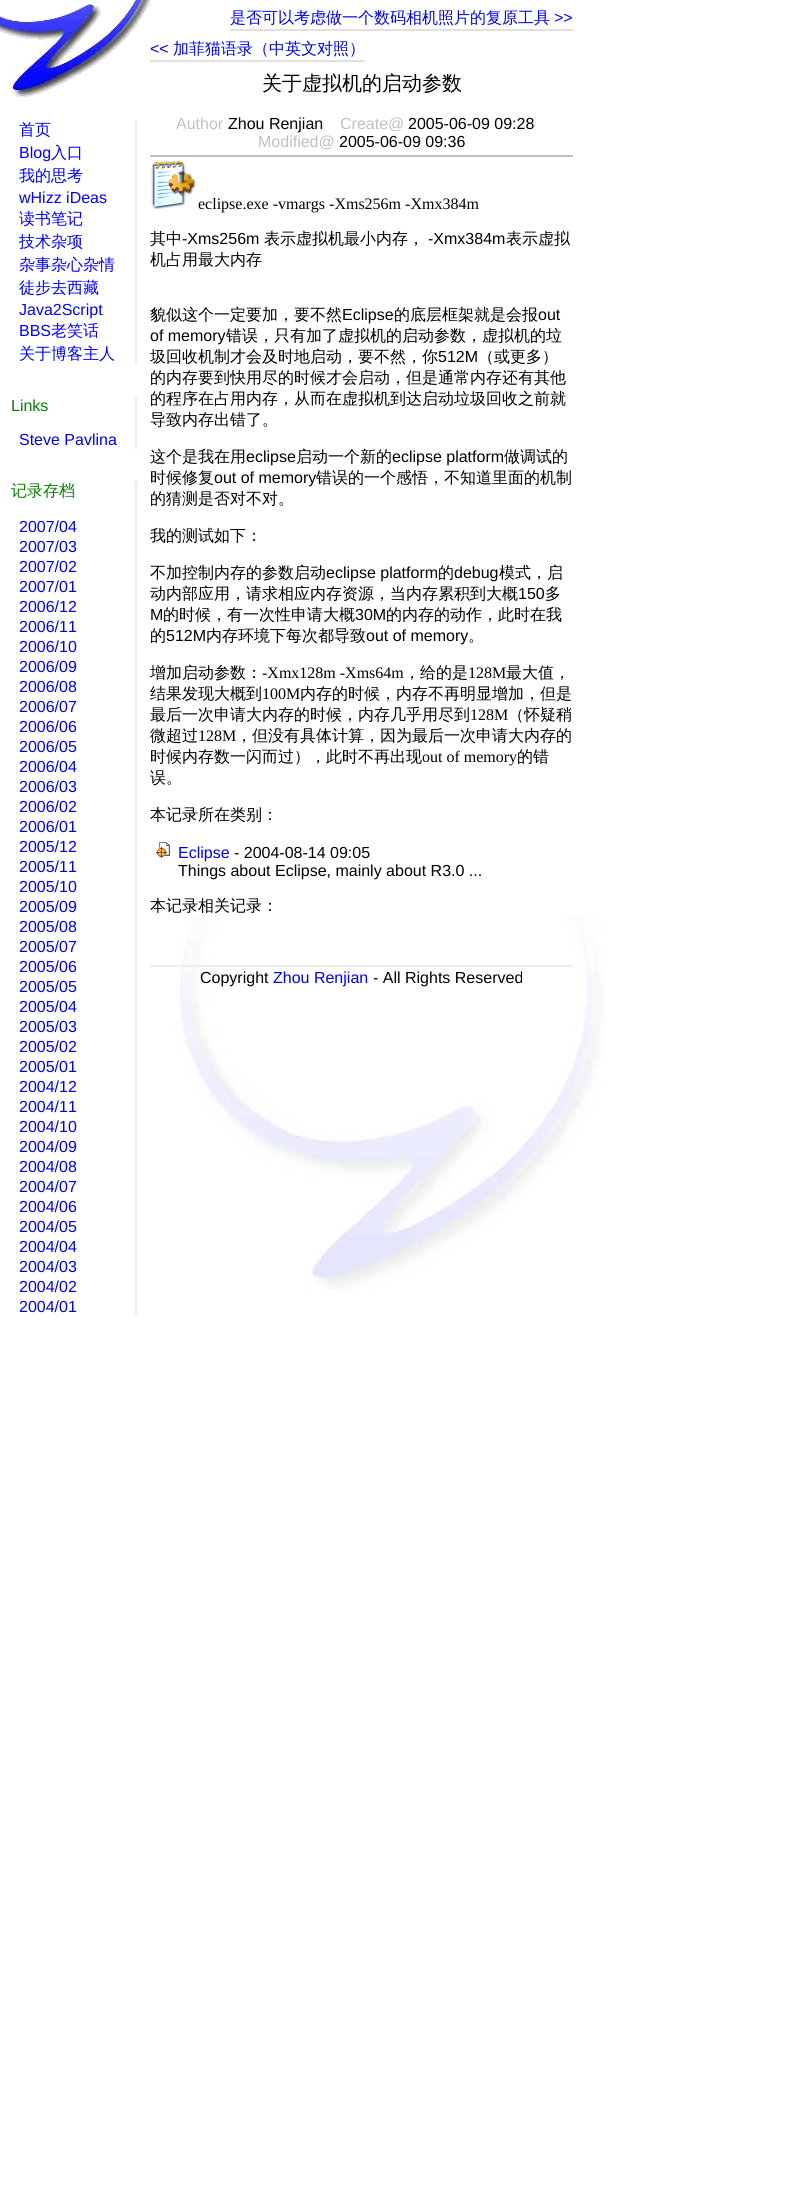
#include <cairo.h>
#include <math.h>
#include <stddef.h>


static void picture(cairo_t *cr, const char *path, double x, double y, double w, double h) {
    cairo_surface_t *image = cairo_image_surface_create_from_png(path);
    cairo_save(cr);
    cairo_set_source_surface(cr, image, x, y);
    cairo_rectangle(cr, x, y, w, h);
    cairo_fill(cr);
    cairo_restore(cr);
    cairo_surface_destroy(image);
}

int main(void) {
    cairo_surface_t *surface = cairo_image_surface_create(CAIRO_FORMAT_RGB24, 789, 2200);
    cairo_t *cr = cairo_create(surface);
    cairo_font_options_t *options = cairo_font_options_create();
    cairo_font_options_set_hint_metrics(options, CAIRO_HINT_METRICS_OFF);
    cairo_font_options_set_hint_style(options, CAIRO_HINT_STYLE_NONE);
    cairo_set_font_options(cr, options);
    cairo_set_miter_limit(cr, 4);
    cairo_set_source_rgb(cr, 1, 1, 1);
    cairo_paint(cr);
    picture(cr, "img1.png", 175, 915, 429, 376);
    picture(cr, "img2.png", 0, 0, 150, 97);
    cairo_set_source_rgb(cr, 0.929, 0.929, 0.929);
    cairo_rectangle(cr, 135, 120, 2, 245);
    cairo_fill(cr);
    cairo_select_font_face(cr, "WenQuanYi Zen Hei Medium", CAIRO_FONT_SLANT_NORMAL, CAIRO_FONT_WEIGHT_NORMAL);
    cairo_set_font_size(cr, 16);
    cairo_set_source_rgb(cr, 0, 0, 1);
    cairo_move_to(cr, 19, 135);
    cairo_show_text(cr, "首页");
    cairo_select_font_face(cr, "Liberation Sans", CAIRO_FONT_SLANT_NORMAL, CAIRO_FONT_WEIGHT_NORMAL);
    cairo_move_to(cr, 19, 158);
    cairo_show_text(cr, "Blog");
    cairo_select_font_face(cr, "WenQuanYi Zen Hei Medium", CAIRO_FONT_SLANT_NORMAL, CAIRO_FONT_WEIGHT_NORMAL);
    cairo_move_to(cr, 51, 158);
    cairo_show_text(cr, "入口");
    cairo_move_to(cr, 19, 181);
    cairo_show_text(cr, "我的思考");
    cairo_select_font_face(cr, "Liberation Sans", CAIRO_FONT_SLANT_NORMAL, CAIRO_FONT_WEIGHT_NORMAL);
    cairo_move_to(cr, 19, 203);
    cairo_show_text(cr, "wHizz iDeas");
    cairo_select_font_face(cr, "WenQuanYi Zen Hei Medium", CAIRO_FONT_SLANT_NORMAL, CAIRO_FONT_WEIGHT_NORMAL);
    cairo_move_to(cr, 19, 224);
    cairo_show_text(cr, "读书笔记");
    cairo_move_to(cr, 19, 247);
    cairo_show_text(cr, "技术杂项");
    cairo_move_to(cr, 19, 270);
    cairo_show_text(cr, "杂事杂心杂情");
    cairo_move_to(cr, 19, 293);
    cairo_show_text(cr, "徒步去西藏");
    cairo_select_font_face(cr, "Liberation Sans", CAIRO_FONT_SLANT_NORMAL, CAIRO_FONT_WEIGHT_NORMAL);
    cairo_move_to(cr, 19, 315);
    cairo_show_text(cr, "Java2Script");
    cairo_move_to(cr, 19, 336);
    cairo_show_text(cr, "BBS");
    cairo_select_font_face(cr, "WenQuanYi Zen Hei Medium", CAIRO_FONT_SLANT_NORMAL, CAIRO_FONT_WEIGHT_NORMAL);
    cairo_move_to(cr, 51, 336);
    cairo_show_text(cr, "老笑话");
    cairo_move_to(cr, 19, 359);
    cairo_show_text(cr, "关于博客主人");
    cairo_set_source_rgb(cr, 0.929, 0.929, 0.929);
    cairo_rectangle(cr, 135, 397, 2, 52);
    cairo_fill(cr);
    cairo_select_font_face(cr, "Liberation Sans", CAIRO_FONT_SLANT_NORMAL, CAIRO_FONT_WEIGHT_NORMAL);
    cairo_set_source_rgb(cr, 0, 0.502, 0);
    cairo_move_to(cr, 11, 411);
    cairo_show_text(cr, "Links");
    cairo_set_source_rgb(cr, 0, 0, 0.933);
    cairo_move_to(cr, 19, 445);
    cairo_show_text(cr, "Steve Pavlina");
    cairo_set_source_rgb(cr, 0.929, 0.929, 0.929);
    cairo_rectangle(cr, 135, 481, 2, 835);
    cairo_fill(cr);
    cairo_select_font_face(cr, "WenQuanYi Zen Hei Medium", CAIRO_FONT_SLANT_NORMAL, CAIRO_FONT_WEIGHT_NORMAL);
    cairo_set_source_rgb(cr, 0, 0.502, 0);
    cairo_move_to(cr, 11, 496);
    cairo_show_text(cr, "记录存档");
    cairo_select_font_face(cr, "Liberation Sans", CAIRO_FONT_SLANT_NORMAL, CAIRO_FONT_WEIGHT_NORMAL);
    cairo_set_source_rgb(cr, 0, 0, 0.933);
    cairo_move_to(cr, 19, 532);
    cairo_show_text(cr, "2007/04");
    cairo_move_to(cr, 19, 552);
    cairo_show_text(cr, "2007/03");
    cairo_move_to(cr, 19, 572);
    cairo_show_text(cr, "2007/02");
    cairo_move_to(cr, 19, 592);
    cairo_show_text(cr, "2007/01");
    cairo_move_to(cr, 19, 612);
    cairo_show_text(cr, "2006/12");
    cairo_move_to(cr, 19, 632);
    cairo_show_text(cr, "2006/11");
    cairo_move_to(cr, 19, 652);
    cairo_show_text(cr, "2006/10");
    cairo_move_to(cr, 19, 672);
    cairo_show_text(cr, "2006/09");
    cairo_move_to(cr, 19, 692);
    cairo_show_text(cr, "2006/08");
    cairo_move_to(cr, 19, 712);
    cairo_show_text(cr, "2006/07");
    cairo_move_to(cr, 19, 732);
    cairo_show_text(cr, "2006/06");
    cairo_move_to(cr, 19, 752);
    cairo_show_text(cr, "2006/05");
    cairo_move_to(cr, 19, 772);
    cairo_show_text(cr, "2006/04");
    cairo_move_to(cr, 19, 792);
    cairo_show_text(cr, "2006/03");
    cairo_move_to(cr, 19, 812);
    cairo_show_text(cr, "2006/02");
    cairo_move_to(cr, 19, 832);
    cairo_show_text(cr, "2006/01");
    cairo_move_to(cr, 19, 852);
    cairo_show_text(cr, "2005/12");
    cairo_move_to(cr, 19, 872);
    cairo_show_text(cr, "2005/11");
    cairo_move_to(cr, 19, 892);
    cairo_show_text(cr, "2005/10");
    cairo_move_to(cr, 19, 912);
    cairo_show_text(cr, "2005/09");
    cairo_move_to(cr, 19, 932);
    cairo_show_text(cr, "2005/08");
    cairo_move_to(cr, 19, 952);
    cairo_show_text(cr, "2005/07");
    cairo_move_to(cr, 19, 972);
    cairo_show_text(cr, "2005/06");
    cairo_move_to(cr, 19, 992);
    cairo_show_text(cr, "2005/05");
    cairo_move_to(cr, 19, 1012);
    cairo_show_text(cr, "2005/04");
    cairo_move_to(cr, 19, 1032);
    cairo_show_text(cr, "2005/03");
    cairo_move_to(cr, 19, 1052);
    cairo_show_text(cr, "2005/02");
    cairo_move_to(cr, 19, 1072);
    cairo_show_text(cr, "2005/01");
    cairo_move_to(cr, 19, 1092);
    cairo_show_text(cr, "2004/12");
    cairo_move_to(cr, 19, 1112);
    cairo_show_text(cr, "2004/11");
    cairo_move_to(cr, 19, 1132);
    cairo_show_text(cr, "2004/10");
    cairo_move_to(cr, 19, 1152);
    cairo_show_text(cr, "2004/09");
    cairo_move_to(cr, 19, 1172);
    cairo_show_text(cr, "2004/08");
    cairo_move_to(cr, 19, 1192);
    cairo_show_text(cr, "2004/07");
    cairo_move_to(cr, 19, 1212);
    cairo_show_text(cr, "2004/06");
    cairo_move_to(cr, 19, 1232);
    cairo_show_text(cr, "2004/05");
    cairo_move_to(cr, 19, 1252);
    cairo_show_text(cr, "2004/04");
    cairo_move_to(cr, 19, 1272);
    cairo_show_text(cr, "2004/03");
    cairo_move_to(cr, 19, 1292);
    cairo_show_text(cr, "2004/02");
    cairo_move_to(cr, 19, 1312);
    cairo_show_text(cr, "2004/01");
    cairo_set_source_rgb(cr, 0.878, 0.878, 0.878);
    cairo_rectangle(cr, 230, 29, 343, 2);
    cairo_fill(cr);
    cairo_select_font_face(cr, "WenQuanYi Zen Hei Medium", CAIRO_FONT_SLANT_NORMAL, CAIRO_FONT_WEIGHT_NORMAL);
    cairo_set_source_rgb(cr, 0, 0, 0.933);
    cairo_move_to(cr, 230, 23);
    cairo_show_text(cr, "是否可以考虑做一个数码相机照片的复原工具");
    cairo_select_font_face(cr, "Liberation Sans", CAIRO_FONT_SLANT_NORMAL, CAIRO_FONT_WEIGHT_NORMAL);
    cairo_move_to(cr, 554, 23);
    cairo_show_text(cr, ">>");
    cairo_set_source_rgb(cr, 0.878, 0.878, 0.878);
    cairo_rectangle(cr, 150, 60, 215, 2);
    cairo_fill(cr);
    cairo_set_source_rgb(cr, 0, 0, 0.933);
    cairo_move_to(cr, 150, 54);
    cairo_show_text(cr, "<<");
    cairo_select_font_face(cr, "WenQuanYi Zen Hei Medium", CAIRO_FONT_SLANT_NORMAL, CAIRO_FONT_WEIGHT_NORMAL);
    cairo_move_to(cr, 173, 54);
    cairo_show_text(cr, "加菲猫语录（中英文对照）");
    cairo_set_font_size(cr, 20);
    cairo_set_source_rgb(cr, 0, 0, 0);
    cairo_move_to(cr, 262, 90);
    cairo_show_text(cr, "关于虚拟机的启动参数");
    cairo_select_font_face(cr, "Liberation Sans", CAIRO_FONT_SLANT_NORMAL, CAIRO_FONT_WEIGHT_NORMAL);
    cairo_set_font_size(cr, 16);
    cairo_set_source_rgb(cr, 0.753, 0.753, 0.753);
    cairo_move_to(cr, 176, 129);
    cairo_show_text(cr, "Author");
    cairo_set_source_rgb(cr, 0, 0, 0);
    cairo_move_to(cr, 228, 129);
    cairo_show_text(cr, "Zhou Renjian");
    cairo_set_source_rgb(cr, 0.753, 0.753, 0.753);
    cairo_move_to(cr, 340, 129);
    cairo_show_text(cr, "Create@");
    cairo_set_source_rgb(cr, 0, 0, 0);
    cairo_move_to(cr, 408, 129);
    cairo_show_text(cr, "2005-06-09 09:28");
    cairo_set_source_rgb(cr, 0.753, 0.753, 0.753);
    cairo_move_to(cr, 258, 147);
    cairo_show_text(cr, "Modified@");
    cairo_set_source_rgb(cr, 0, 0, 0);
    cairo_move_to(cr, 339, 147);
    cairo_show_text(cr, "2005-06-09 09:36");
    cairo_set_source_rgb(cr, 0.753, 0.753, 0.753);
    cairo_rectangle(cr, 150, 155, 423, 2);
    cairo_fill(cr);
    picture(cr, "img3.png", 151, 161, 45, 48);
    cairo_select_font_face(cr, "Liberation Serif", CAIRO_FONT_SLANT_NORMAL, CAIRO_FONT_WEIGHT_NORMAL);
    cairo_set_source_rgb(cr, 0, 0, 0);
    cairo_move_to(cr, 198, 209);
    cairo_show_text(cr, "eclipse.exe -vmargs -Xms256m -Xmx384m");
    cairo_select_font_face(cr, "WenQuanYi Zen Hei Medium", CAIRO_FONT_SLANT_NORMAL, CAIRO_FONT_WEIGHT_NORMAL);
    cairo_move_to(cr, 150, 244);
    cairo_show_text(cr, "其中");
    cairo_select_font_face(cr, "Liberation Sans", CAIRO_FONT_SLANT_NORMAL, CAIRO_FONT_WEIGHT_NORMAL);
    cairo_move_to(cr, 182, 244);
    cairo_show_text(cr, "-Xms256m");
    cairo_select_font_face(cr, "WenQuanYi Zen Hei Medium", CAIRO_FONT_SLANT_NORMAL, CAIRO_FONT_WEIGHT_NORMAL);
    cairo_move_to(cr, 264, 244);
    cairo_show_text(cr, "表示虚拟机最小内存，");
    cairo_select_font_face(cr, "Liberation Sans", CAIRO_FONT_SLANT_NORMAL, CAIRO_FONT_WEIGHT_NORMAL);
    cairo_move_to(cr, 428, 244);
    cairo_show_text(cr, "-Xmx384m");
    cairo_select_font_face(cr, "WenQuanYi Zen Hei Medium", CAIRO_FONT_SLANT_NORMAL, CAIRO_FONT_WEIGHT_NORMAL);
    cairo_move_to(cr, 506, 244);
    cairo_show_text(cr, "表示虚拟");
    cairo_move_to(cr, 150, 265);
    cairo_show_text(cr, "机占用最大内存");
    cairo_move_to(cr, 150, 320);
    cairo_show_text(cr, "貌似这个一定要加，要不然");
    cairo_select_font_face(cr, "Liberation Sans", CAIRO_FONT_SLANT_NORMAL, CAIRO_FONT_WEIGHT_NORMAL);
    cairo_move_to(cr, 342, 320);
    cairo_show_text(cr, "Eclipse");
    cairo_select_font_face(cr, "WenQuanYi Zen Hei Medium", CAIRO_FONT_SLANT_NORMAL, CAIRO_FONT_WEIGHT_NORMAL);
    cairo_move_to(cr, 394, 320);
    cairo_show_text(cr, "的底层框架就是会报");
    cairo_select_font_face(cr, "Liberation Sans", CAIRO_FONT_SLANT_NORMAL, CAIRO_FONT_WEIGHT_NORMAL);
    cairo_move_to(cr, 538, 320);
    cairo_show_text(cr, "out");
    cairo_move_to(cr, 150, 341);
    cairo_show_text(cr, "of memory");
    cairo_select_font_face(cr, "WenQuanYi Zen Hei Medium", CAIRO_FONT_SLANT_NORMAL, CAIRO_FONT_WEIGHT_NORMAL);
    cairo_move_to(cr, 226, 341);
    cairo_show_text(cr, "错误，只有加了虚拟机的启动参数，虚拟机的垃");
    cairo_move_to(cr, 150, 362);
    cairo_show_text(cr, "圾回收机制才会及时地启动，要不然，你");
    cairo_select_font_face(cr, "Liberation Sans", CAIRO_FONT_SLANT_NORMAL, CAIRO_FONT_WEIGHT_NORMAL);
    cairo_move_to(cr, 438, 362);
    cairo_show_text(cr, "512M");
    cairo_select_font_face(cr, "WenQuanYi Zen Hei Medium", CAIRO_FONT_SLANT_NORMAL, CAIRO_FONT_WEIGHT_NORMAL);
    cairo_move_to(cr, 478, 362);
    cairo_show_text(cr, "（或更多）");
    cairo_move_to(cr, 150, 383);
    cairo_show_text(cr, "的内存要到快用尽的时候才会启动，但是通常内存还有其他");
    cairo_move_to(cr, 150, 404);
    cairo_show_text(cr, "的程序在占用内存，从而在虚拟机到达启动垃圾回收之前就");
    cairo_move_to(cr, 150, 425);
    cairo_show_text(cr, "导致内存出错了。");
    cairo_move_to(cr, 150, 462);
    cairo_show_text(cr, "这个是我在用");
    cairo_select_font_face(cr, "Liberation Sans", CAIRO_FONT_SLANT_NORMAL, CAIRO_FONT_WEIGHT_NORMAL);
    cairo_move_to(cr, 246, 462);
    cairo_show_text(cr, "eclipse");
    cairo_select_font_face(cr, "WenQuanYi Zen Hei Medium", CAIRO_FONT_SLANT_NORMAL, CAIRO_FONT_WEIGHT_NORMAL);
    cairo_move_to(cr, 296, 462);
    cairo_show_text(cr, "启动一个新的");
    cairo_select_font_face(cr, "Liberation Sans", CAIRO_FONT_SLANT_NORMAL, CAIRO_FONT_WEIGHT_NORMAL);
    cairo_move_to(cr, 392, 462);
    cairo_show_text(cr, "eclipse platform");
    cairo_select_font_face(cr, "WenQuanYi Zen Hei Medium", CAIRO_FONT_SLANT_NORMAL, CAIRO_FONT_WEIGHT_NORMAL);
    cairo_move_to(cr, 504, 462);
    cairo_show_text(cr, "做调试的");
    cairo_move_to(cr, 150, 483);
    cairo_show_text(cr, "时候修复");
    cairo_select_font_face(cr, "Liberation Sans", CAIRO_FONT_SLANT_NORMAL, CAIRO_FONT_WEIGHT_NORMAL);
    cairo_move_to(cr, 214, 483);
    cairo_show_text(cr, "out of memory");
    cairo_select_font_face(cr, "WenQuanYi Zen Hei Medium", CAIRO_FONT_SLANT_NORMAL, CAIRO_FONT_WEIGHT_NORMAL);
    cairo_move_to(cr, 316, 483);
    cairo_show_text(cr, "错误的一个感悟，不知道里面的机制");
    cairo_move_to(cr, 150, 504);
    cairo_show_text(cr, "的猜测是否对不对。");
    cairo_move_to(cr, 150, 541);
    cairo_show_text(cr, "我的测试如下：");
    cairo_move_to(cr, 150, 578);
    cairo_show_text(cr, "不加控制内存的参数启动");
    cairo_select_font_face(cr, "Liberation Sans", CAIRO_FONT_SLANT_NORMAL, CAIRO_FONT_WEIGHT_NORMAL);
    cairo_move_to(cr, 326, 578);
    cairo_show_text(cr, "eclipse platform");
    cairo_select_font_face(cr, "WenQuanYi Zen Hei Medium", CAIRO_FONT_SLANT_NORMAL, CAIRO_FONT_WEIGHT_NORMAL);
    cairo_move_to(cr, 438, 578);
    cairo_show_text(cr, "的");
    cairo_select_font_face(cr, "Liberation Sans", CAIRO_FONT_SLANT_NORMAL, CAIRO_FONT_WEIGHT_NORMAL);
    cairo_move_to(cr, 454, 578);
    cairo_show_text(cr, "debug");
    cairo_select_font_face(cr, "WenQuanYi Zen Hei Medium", CAIRO_FONT_SLANT_NORMAL, CAIRO_FONT_WEIGHT_NORMAL);
    cairo_move_to(cr, 499, 578);
    cairo_show_text(cr, "模式，启");
    cairo_move_to(cr, 150, 599);
    cairo_show_text(cr, "动内部应用，请求相应内存资源，当内存累积到大概");
    cairo_select_font_face(cr, "Liberation Sans", CAIRO_FONT_SLANT_NORMAL, CAIRO_FONT_WEIGHT_NORMAL);
    cairo_move_to(cr, 518, 599);
    cairo_show_text(cr, "150");
    cairo_select_font_face(cr, "WenQuanYi Zen Hei Medium", CAIRO_FONT_SLANT_NORMAL, CAIRO_FONT_WEIGHT_NORMAL);
    cairo_move_to(cr, 545, 599);
    cairo_show_text(cr, "多");
    cairo_select_font_face(cr, "Liberation Sans", CAIRO_FONT_SLANT_NORMAL, CAIRO_FONT_WEIGHT_NORMAL);
    cairo_move_to(cr, 150, 620);
    cairo_show_text(cr, "M");
    cairo_select_font_face(cr, "WenQuanYi Zen Hei Medium", CAIRO_FONT_SLANT_NORMAL, CAIRO_FONT_WEIGHT_NORMAL);
    cairo_move_to(cr, 163, 620);
    cairo_show_text(cr, "的时候，有一次性申请大概");
    cairo_select_font_face(cr, "Liberation Sans", CAIRO_FONT_SLANT_NORMAL, CAIRO_FONT_WEIGHT_NORMAL);
    cairo_move_to(cr, 355, 620);
    cairo_show_text(cr, "30M");
    cairo_select_font_face(cr, "WenQuanYi Zen Hei Medium", CAIRO_FONT_SLANT_NORMAL, CAIRO_FONT_WEIGHT_NORMAL);
    cairo_move_to(cr, 386, 620);
    cairo_show_text(cr, "的内存的动作，此时在我");
    cairo_move_to(cr, 150, 641);
    cairo_show_text(cr, "的");
    cairo_select_font_face(cr, "Liberation Sans", CAIRO_FONT_SLANT_NORMAL, CAIRO_FONT_WEIGHT_NORMAL);
    cairo_move_to(cr, 166, 641);
    cairo_show_text(cr, "512M");
    cairo_select_font_face(cr, "WenQuanYi Zen Hei Medium", CAIRO_FONT_SLANT_NORMAL, CAIRO_FONT_WEIGHT_NORMAL);
    cairo_move_to(cr, 206, 641);
    cairo_show_text(cr, "内存环境下每次都导致");
    cairo_select_font_face(cr, "Liberation Sans", CAIRO_FONT_SLANT_NORMAL, CAIRO_FONT_WEIGHT_NORMAL);
    cairo_move_to(cr, 366, 641);
    cairo_show_text(cr, "out of memory");
    cairo_select_font_face(cr, "WenQuanYi Zen Hei Medium", CAIRO_FONT_SLANT_NORMAL, CAIRO_FONT_WEIGHT_NORMAL);
    cairo_move_to(cr, 468, 641);
    cairo_show_text(cr, "。");
    cairo_move_to(cr, 150, 678);
    cairo_show_text(cr, "增加启动参数：");
    cairo_select_font_face(cr, "Liberation Serif", CAIRO_FONT_SLANT_NORMAL, CAIRO_FONT_WEIGHT_NORMAL);
    cairo_move_to(cr, 262, 678);
    cairo_show_text(cr, "-Xmx128m -Xms64m");
    cairo_select_font_face(cr, "WenQuanYi Zen Hei Medium", CAIRO_FONT_SLANT_NORMAL, CAIRO_FONT_WEIGHT_NORMAL);
    cairo_move_to(cr, 404, 678);
    cairo_show_text(cr, "，给的是");
    cairo_select_font_face(cr, "Liberation Serif", CAIRO_FONT_SLANT_NORMAL, CAIRO_FONT_WEIGHT_NORMAL);
    cairo_move_to(cr, 468, 678);
    cairo_show_text(cr, "128M");
    cairo_select_font_face(cr, "WenQuanYi Zen Hei Medium", CAIRO_FONT_SLANT_NORMAL, CAIRO_FONT_WEIGHT_NORMAL);
    cairo_move_to(cr, 506, 678);
    cairo_show_text(cr, "最大值，");
    cairo_move_to(cr, 150, 699);
    cairo_show_text(cr, "结果发现大概到");
    cairo_select_font_face(cr, "Liberation Serif", CAIRO_FONT_SLANT_NORMAL, CAIRO_FONT_WEIGHT_NORMAL);
    cairo_move_to(cr, 262, 699);
    cairo_show_text(cr, "100M");
    cairo_select_font_face(cr, "WenQuanYi Zen Hei Medium", CAIRO_FONT_SLANT_NORMAL, CAIRO_FONT_WEIGHT_NORMAL);
    cairo_move_to(cr, 300, 699);
    cairo_show_text(cr, "内存的时候，内存不再明显增加，但是");
    cairo_move_to(cr, 150, 720);
    cairo_show_text(cr, "最后一次申请大内存的时候，内存几乎用尽到");
    cairo_select_font_face(cr, "Liberation Serif", CAIRO_FONT_SLANT_NORMAL, CAIRO_FONT_WEIGHT_NORMAL);
    cairo_move_to(cr, 470, 720);
    cairo_show_text(cr, "128M");
    cairo_select_font_face(cr, "WenQuanYi Zen Hei Medium", CAIRO_FONT_SLANT_NORMAL, CAIRO_FONT_WEIGHT_NORMAL);
    cairo_move_to(cr, 508, 720);
    cairo_show_text(cr, "（怀疑稍");
    cairo_move_to(cr, 150, 741);
    cairo_show_text(cr, "微超过");
    cairo_select_font_face(cr, "Liberation Serif", CAIRO_FONT_SLANT_NORMAL, CAIRO_FONT_WEIGHT_NORMAL);
    cairo_move_to(cr, 198, 741);
    cairo_show_text(cr, "128M");
    cairo_select_font_face(cr, "WenQuanYi Zen Hei Medium", CAIRO_FONT_SLANT_NORMAL, CAIRO_FONT_WEIGHT_NORMAL);
    cairo_move_to(cr, 236, 741);
    cairo_show_text(cr, "，但没有具体计算，因为最后一次申请大内存的");
    cairo_move_to(cr, 150, 762);
    cairo_show_text(cr, "时候内存数一闪而过），此时不再出现");
    cairo_select_font_face(cr, "Liberation Serif", CAIRO_FONT_SLANT_NORMAL, CAIRO_FONT_WEIGHT_NORMAL);
    cairo_move_to(cr, 422, 762);
    cairo_show_text(cr, "out of memory");
    cairo_select_font_face(cr, "WenQuanYi Zen Hei Medium", CAIRO_FONT_SLANT_NORMAL, CAIRO_FONT_WEIGHT_NORMAL);
    cairo_move_to(cr, 517, 762);
    cairo_show_text(cr, "的错");
    cairo_move_to(cr, 150, 783);
    cairo_show_text(cr, "误。");
    cairo_move_to(cr, 150, 820);
    cairo_show_text(cr, "本记录所在类别：");
    picture(cr, "img4.png", 156, 842, 14, 16);
    cairo_select_font_face(cr, "Liberation Sans", CAIRO_FONT_SLANT_NORMAL, CAIRO_FONT_WEIGHT_NORMAL);
    cairo_set_source_rgb(cr, 0, 0, 0.933);
    cairo_move_to(cr, 178, 858);
    cairo_show_text(cr, "Eclipse");
    cairo_set_source_rgb(cr, 0, 0, 0);
    cairo_move_to(cr, 234, 858);
    cairo_show_text(cr, "- 2004-08-14 09:05");
    cairo_move_to(cr, 178, 876);
    cairo_show_text(cr, "Things about Eclipse, mainly about R3.0 ...");
    cairo_select_font_face(cr, "WenQuanYi Zen Hei Medium", CAIRO_FONT_SLANT_NORMAL, CAIRO_FONT_WEIGHT_NORMAL);
    cairo_move_to(cr, 150, 911);
    cairo_show_text(cr, "本记录相关记录：");
    cairo_set_source_rgb(cr, 0.929, 0.929, 0.929);
    cairo_rectangle(cr, 150, 965, 423, 2);
    cairo_fill(cr);
    cairo_select_font_face(cr, "Liberation Sans", CAIRO_FONT_SLANT_NORMAL, CAIRO_FONT_WEIGHT_NORMAL);
    cairo_set_source_rgb(cr, 0, 0, 0);
    cairo_move_to(cr, 200, 983);
    cairo_show_text(cr, "Copyright");
    cairo_set_source_rgb(cr, 0, 0, 0.933);
    cairo_move_to(cr, 273, 983);
    cairo_show_text(cr, "Zhou Renjian");
    cairo_set_source_rgb(cr, 0, 0, 0);
    cairo_move_to(cr, 373, 983);
    cairo_show_text(cr, "- All Rights Reserved");
    cairo_surface_write_to_png(surface, "page.png");
    cairo_font_options_destroy(options);
    cairo_destroy(cr);
    cairo_surface_destroy(surface);
    return 0;
}
